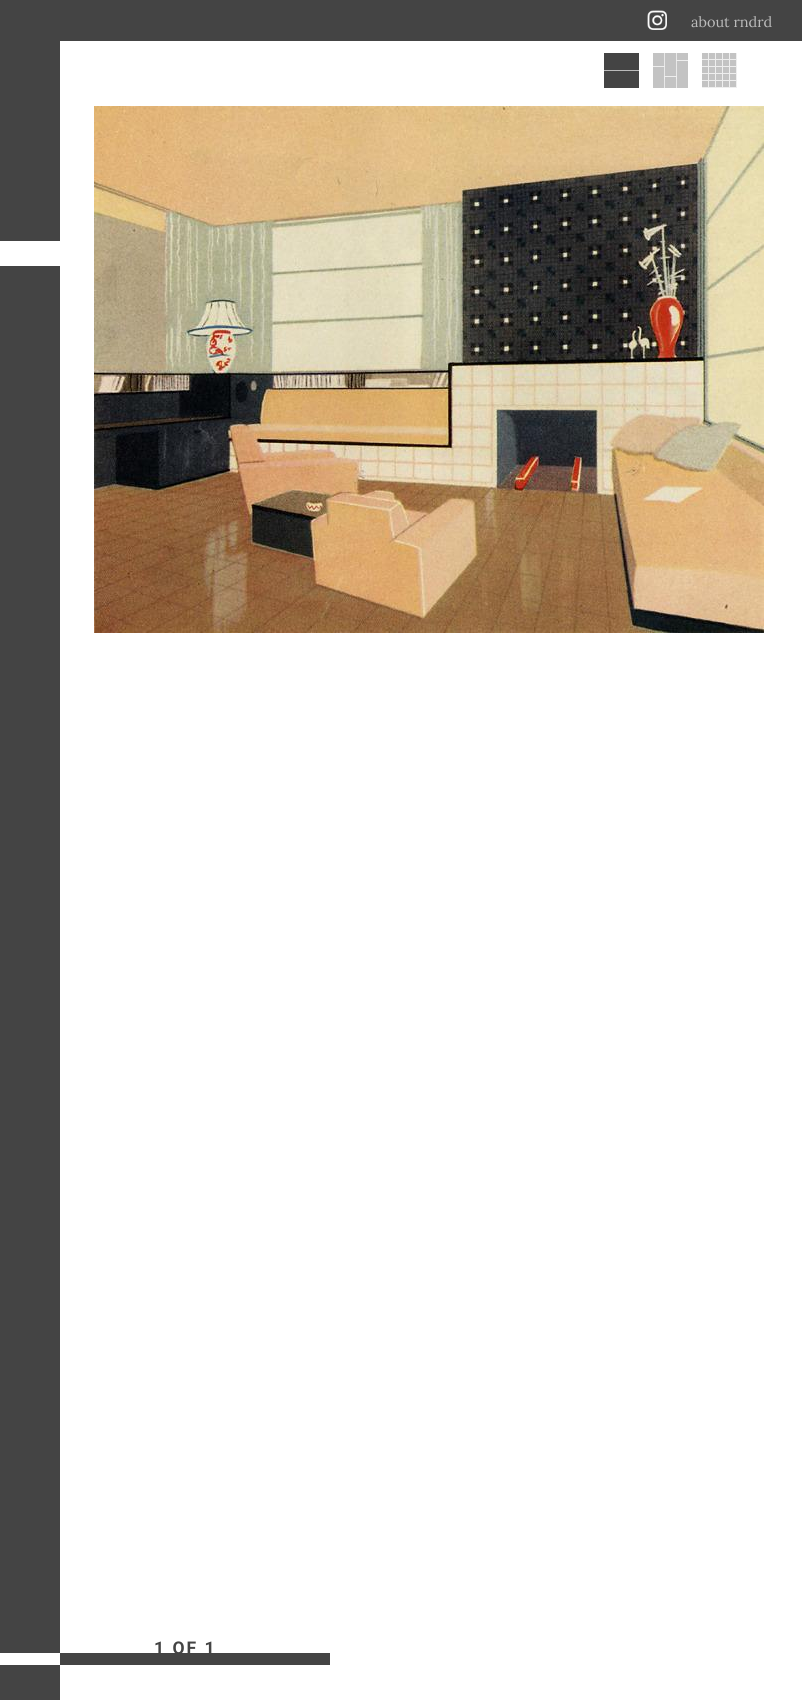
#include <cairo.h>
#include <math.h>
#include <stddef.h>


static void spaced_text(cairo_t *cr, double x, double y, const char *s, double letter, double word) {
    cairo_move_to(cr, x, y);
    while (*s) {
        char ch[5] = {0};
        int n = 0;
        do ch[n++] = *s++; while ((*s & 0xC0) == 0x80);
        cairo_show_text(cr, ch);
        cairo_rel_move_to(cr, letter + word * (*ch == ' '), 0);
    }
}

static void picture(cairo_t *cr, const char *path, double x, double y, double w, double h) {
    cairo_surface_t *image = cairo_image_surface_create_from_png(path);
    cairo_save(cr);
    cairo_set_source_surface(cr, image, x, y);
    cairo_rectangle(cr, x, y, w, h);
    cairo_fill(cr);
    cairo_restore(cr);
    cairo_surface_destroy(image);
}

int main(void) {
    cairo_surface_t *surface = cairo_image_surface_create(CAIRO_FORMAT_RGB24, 802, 1700);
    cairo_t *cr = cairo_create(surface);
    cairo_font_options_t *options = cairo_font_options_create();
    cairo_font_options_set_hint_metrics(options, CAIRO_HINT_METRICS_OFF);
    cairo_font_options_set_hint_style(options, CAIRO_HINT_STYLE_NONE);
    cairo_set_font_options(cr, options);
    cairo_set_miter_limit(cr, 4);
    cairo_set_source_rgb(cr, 0.267, 0.267, 0.267);
    cairo_paint(cr);
    picture(cr, "img1.png", 647, 10, 20, 20);
    cairo_select_font_face(cr, "Lora", CAIRO_FONT_SLANT_NORMAL, CAIRO_FONT_WEIGHT_NORMAL);
    cairo_set_font_size(cr, 14.5);
    cairo_set_source_rgb(cr, 0.733, 0.733, 0.733);
    cairo_move_to(cr, 691, 27);
    cairo_show_text(cr, "about rndrd");
    cairo_set_source_rgb(cr, 1, 1, 1);
    cairo_rectangle(cr, 60, 41, 742, 1659);
    cairo_fill(cr);
    cairo_set_source_rgb(cr, 0.733, 0.733, 0.733);
    cairo_rectangle(cr, 604, 70, 35, 1);
    cairo_fill(cr);
    picture(cr, "img2.png", 604, 53, 35, 35);
    cairo_set_source_rgb(cr, 0.933, 0.933, 0.933);
    cairo_rectangle(cr, 653, 53, 35, 35);
    cairo_fill(cr);
    picture(cr, "img3.png", 653, 53, 35, 35);
    cairo_rectangle(cr, 702, 53, 35, 35);
    cairo_fill(cr);
    picture(cr, "img4.png", 702, 53, 34, 34);
    picture(cr, "img5.png", 94, 106, 670, 527);
    cairo_set_source_rgb(cr, 1, 1, 1);
    cairo_rectangle(cr, 0, 241, 60, 25);
    cairo_fill(cr);
    cairo_set_source_rgb(cr, 0.267, 0.267, 0.267);
    cairo_rectangle(cr, 60, 1653, 270, 12);
    cairo_fill(cr);
    cairo_select_font_face(cr, "Roboto", CAIRO_FONT_SLANT_NORMAL, CAIRO_FONT_WEIGHT_BOLD);
    cairo_set_font_size(cr, 17.5);
    spaced_text(cr, 154, 1654, "1 OF 1", 2, 0);
    cairo_set_source_rgb(cr, 1, 1, 1);
    cairo_rectangle(cr, 0, 1653, 60, 12);
    cairo_fill(cr);
    cairo_surface_write_to_png(surface, "page.png");
    cairo_font_options_destroy(options);
    cairo_destroy(cr);
    cairo_surface_destroy(surface);
    return 0;
}
